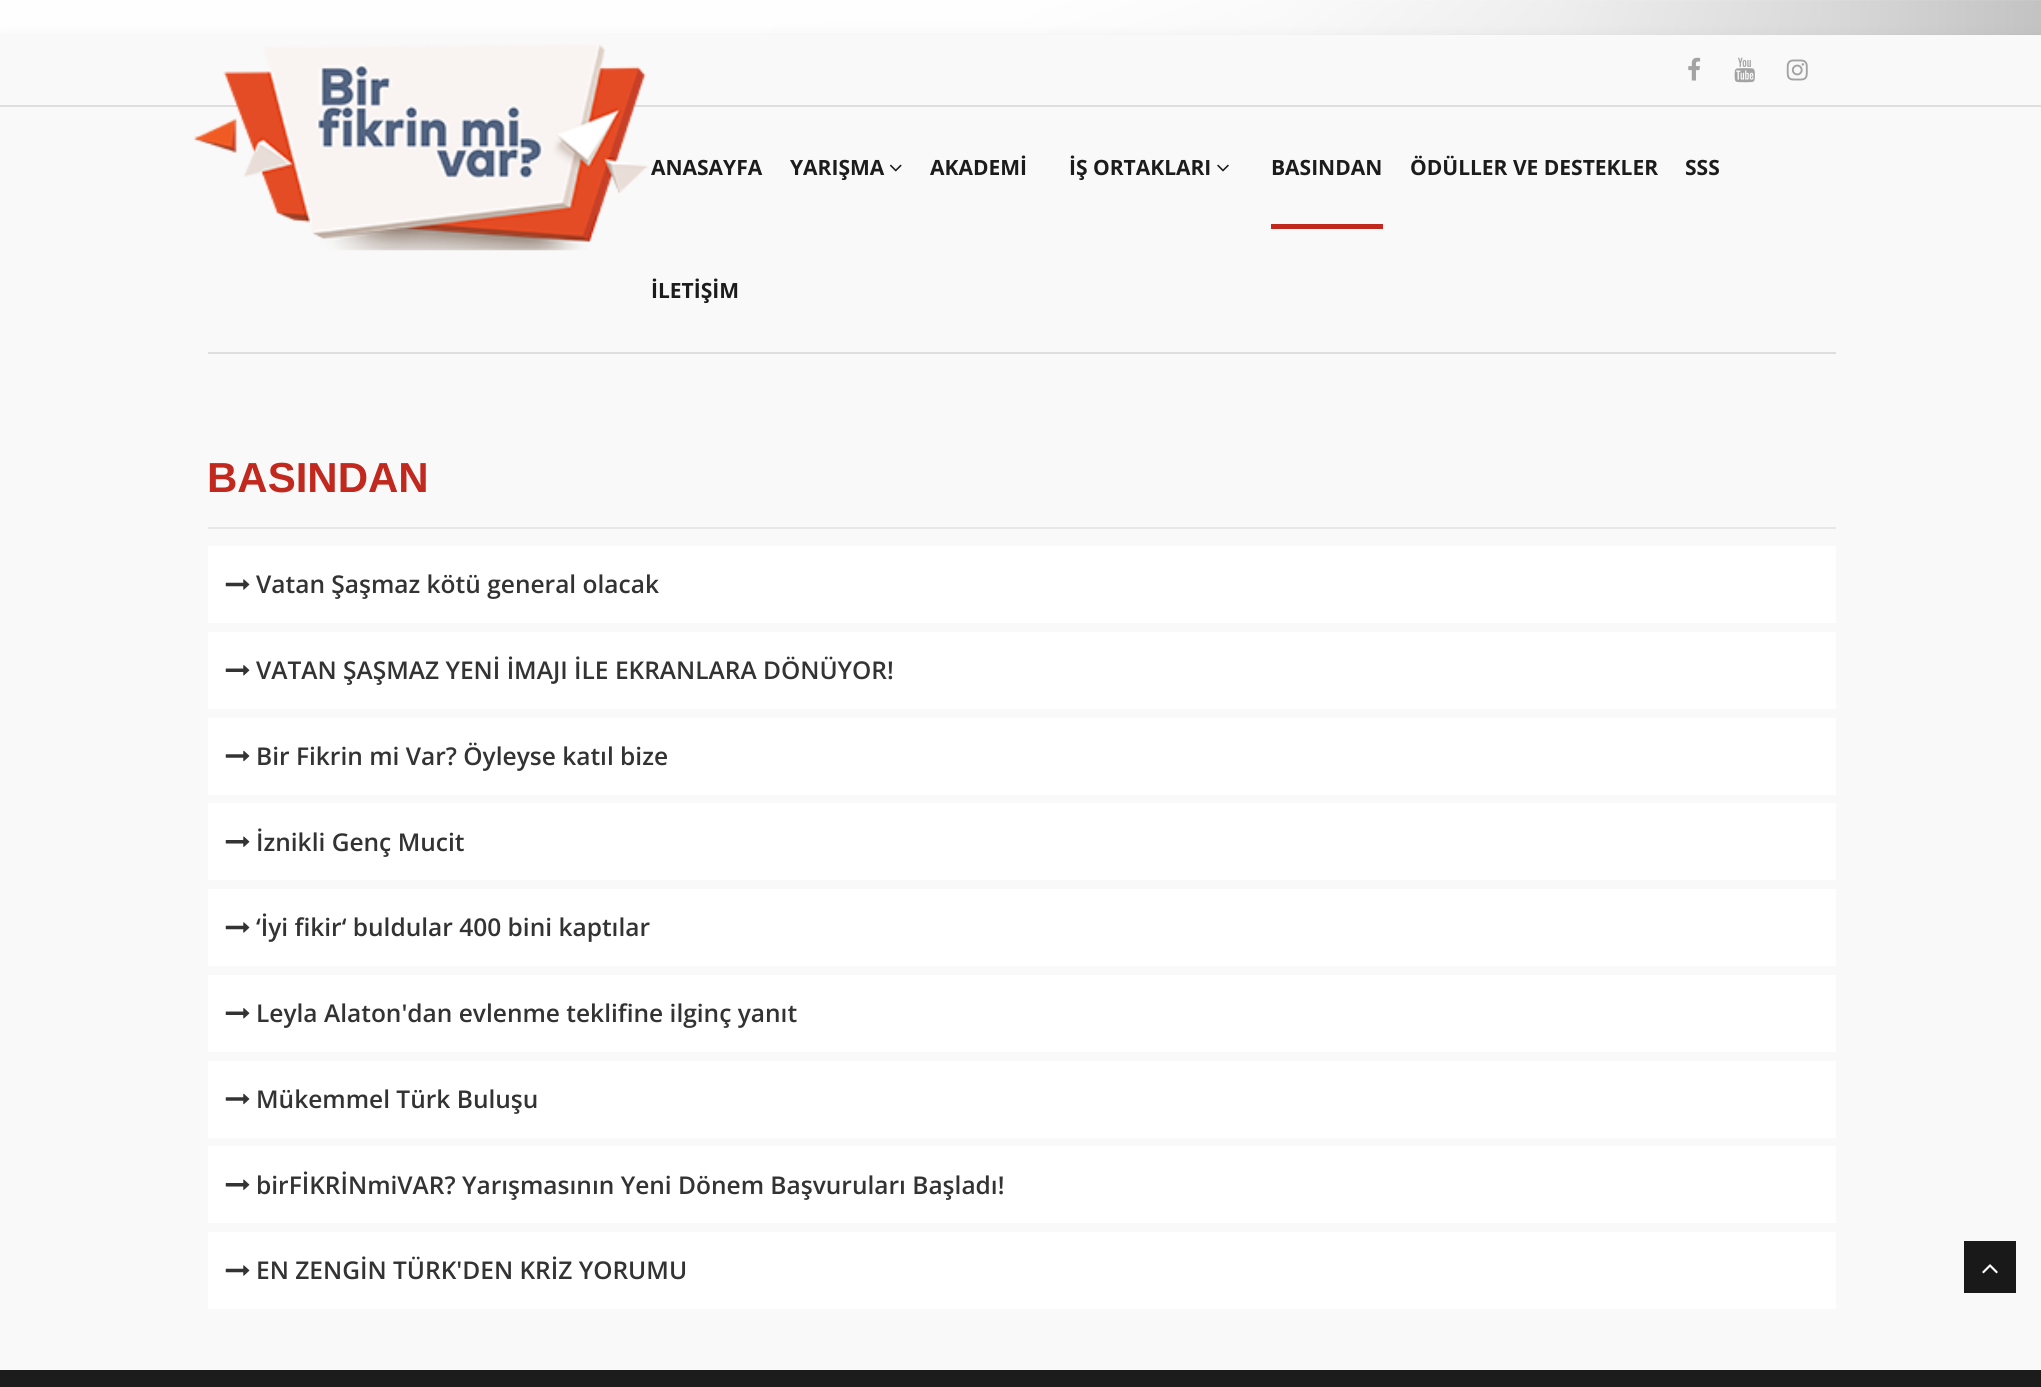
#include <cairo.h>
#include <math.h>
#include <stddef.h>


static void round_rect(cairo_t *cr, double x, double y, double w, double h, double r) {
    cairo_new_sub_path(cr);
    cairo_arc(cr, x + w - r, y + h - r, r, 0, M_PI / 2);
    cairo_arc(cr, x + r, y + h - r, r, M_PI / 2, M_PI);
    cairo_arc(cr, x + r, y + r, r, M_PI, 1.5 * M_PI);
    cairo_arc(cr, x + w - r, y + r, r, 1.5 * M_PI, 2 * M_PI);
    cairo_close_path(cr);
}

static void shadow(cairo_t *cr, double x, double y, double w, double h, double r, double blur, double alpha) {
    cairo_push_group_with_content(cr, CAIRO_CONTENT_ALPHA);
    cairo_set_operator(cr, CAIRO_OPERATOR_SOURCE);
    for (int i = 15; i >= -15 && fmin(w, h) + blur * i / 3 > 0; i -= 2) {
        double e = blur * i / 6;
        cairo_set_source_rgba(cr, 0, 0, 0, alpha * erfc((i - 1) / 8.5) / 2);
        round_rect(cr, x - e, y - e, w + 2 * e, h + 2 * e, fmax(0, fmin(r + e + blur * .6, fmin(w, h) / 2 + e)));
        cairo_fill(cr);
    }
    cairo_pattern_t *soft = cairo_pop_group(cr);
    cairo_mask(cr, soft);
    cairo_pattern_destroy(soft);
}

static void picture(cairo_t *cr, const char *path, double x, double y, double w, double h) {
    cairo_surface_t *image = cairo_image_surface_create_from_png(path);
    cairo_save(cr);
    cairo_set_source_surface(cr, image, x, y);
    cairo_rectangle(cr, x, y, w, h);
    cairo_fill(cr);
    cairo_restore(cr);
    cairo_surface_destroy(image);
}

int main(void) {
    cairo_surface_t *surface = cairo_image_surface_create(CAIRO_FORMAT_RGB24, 2041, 1387);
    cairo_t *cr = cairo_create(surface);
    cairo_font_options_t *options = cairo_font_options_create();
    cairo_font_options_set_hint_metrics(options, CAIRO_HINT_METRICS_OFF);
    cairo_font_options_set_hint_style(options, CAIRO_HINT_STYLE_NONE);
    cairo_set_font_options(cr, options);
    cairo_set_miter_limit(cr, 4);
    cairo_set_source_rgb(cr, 1, 1, 1);
    cairo_paint(cr);
    picture(cr, "img1.png", 0, 0, 2041, 35);
    cairo_set_source_rgb(cr, 0, 0, 0);
    shadow(cr, 0, 47, 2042, 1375, 0, 11.5, 0.15);
    cairo_set_source_rgb(cr, 0.976, 0.976, 0.976);
    cairo_rectangle(cr, 0, 35, 2041, 1335);
    cairo_fill(cr);
    cairo_set_source_rgb(cr, 0.871, 0.871, 0.871);
    cairo_rectangle(cr, 0, 105, 2041, 2);
    cairo_fill(cr);
    picture(cr, "img2.png", 1688, 57, 13, 24);
    picture(cr, "img3.png", 1734, 57, 21, 26);
    picture(cr, "img4.png", 1786, 59, 22, 22);
    cairo_rectangle(cr, 208, 352, 1628, 2);
    cairo_fill(cr);
    picture(cr, "img5.png", 194, 44, 455, 207);
    cairo_select_font_face(cr, "Open Sans", CAIRO_FONT_SLANT_NORMAL, CAIRO_FONT_WEIGHT_BOLD);
    cairo_set_font_size(cr, 21);
    cairo_set_source_rgb(cr, 0.11, 0.11, 0.11);
    cairo_move_to(cr, 651, 175);
    cairo_show_text(cr, "ANASAYFA");
    cairo_move_to(cr, 790, 175);
    cairo_show_text(cr, "YARIŞMA");
    picture(cr, "img6.png", 889, 164, 13, 8);
    cairo_move_to(cr, 930, 175);
    cairo_show_text(cr, "AKADEMİ");
    cairo_move_to(cr, 1069, 175);
    cairo_show_text(cr, "İŞ ORTAKLARI");
    picture(cr, "img7.png", 1217, 164, 12, 8);
    cairo_move_to(cr, 1271, 175);
    cairo_show_text(cr, "BASINDAN");
    cairo_set_source_rgb(cr, 0.757, 0.157, 0.118);
    cairo_rectangle(cr, 1271, 224, 112, 5);
    cairo_fill(cr);
    cairo_set_source_rgb(cr, 0.11, 0.11, 0.11);
    cairo_move_to(cr, 1410, 175);
    cairo_show_text(cr, "ÖDÜLLER VE DESTEKLER");
    cairo_move_to(cr, 1685, 175);
    cairo_show_text(cr, "SSS");
    cairo_move_to(cr, 651, 298);
    cairo_show_text(cr, "İLETİŞİM");
    cairo_select_font_face(cr, "Arimo", CAIRO_FONT_SLANT_NORMAL, CAIRO_FONT_WEIGHT_BOLD);
    cairo_set_font_size(cr, 42);
    cairo_set_source_rgb(cr, 0.757, 0.157, 0.118);
    cairo_move_to(cr, 207, 492);
    cairo_show_text(cr, "BASINDAN");
    cairo_set_source_rgb(cr, 0.906, 0.906, 0.906);
    cairo_rectangle(cr, 208, 527, 1628, 2);
    cairo_fill(cr);
    cairo_set_source_rgb(cr, 1, 1, 1);
    cairo_rectangle(cr, 208, 546, 1628, 77);
    cairo_fill(cr);
    picture(cr, "img8.png", 225, 579, 25, 11);
    cairo_select_font_face(cr, "Open Sans SemiBold", CAIRO_FONT_SLANT_NORMAL, CAIRO_FONT_WEIGHT_NORMAL);
    cairo_set_font_size(cr, 24.5);
    cairo_set_source_rgb(cr, 0.2, 0.2, 0.2);
    cairo_move_to(cr, 256, 593);
    cairo_show_text(cr, "Vatan Şaşmaz kötü general olacak");
    cairo_set_source_rgb(cr, 1, 1, 1);
    cairo_rectangle(cr, 208, 632, 1628, 77);
    cairo_fill(cr);
    picture(cr, "img9.png", 225, 665, 25, 11);
    cairo_set_source_rgb(cr, 0.2, 0.2, 0.2);
    cairo_move_to(cr, 256, 679);
    cairo_show_text(cr, "VATAN ŞAŞMAZ YENİ İMAJI İLE EKRANLARA DÖNÜYOR!");
    cairo_set_source_rgb(cr, 1, 1, 1);
    cairo_rectangle(cr, 208, 718, 1628, 77);
    cairo_fill(cr);
    picture(cr, "img10.png", 225, 750, 25, 12);
    cairo_set_source_rgb(cr, 0.2, 0.2, 0.2);
    cairo_move_to(cr, 256, 765);
    cairo_show_text(cr, "Bir Fikrin mi Var? Öyleyse katıl bize");
    cairo_set_source_rgb(cr, 1, 1, 1);
    cairo_rectangle(cr, 208, 803, 1628, 77);
    cairo_fill(cr);
    picture(cr, "img11.png", 225, 836, 25, 11);
    cairo_set_source_rgb(cr, 0.2, 0.2, 0.2);
    cairo_move_to(cr, 256, 851);
    cairo_show_text(cr, "İznikli Genç Mucit");
    cairo_set_source_rgb(cr, 1, 1, 1);
    cairo_rectangle(cr, 208, 889, 1628, 77);
    cairo_fill(cr);
    picture(cr, "img8.png", 225, 922, 25, 11);
    cairo_set_source_rgb(cr, 0.2, 0.2, 0.2);
    cairo_move_to(cr, 256, 936);
    cairo_show_text(cr, "‘İyi fikir‘ buldular 400 bini kaptılar");
    cairo_set_source_rgb(cr, 1, 1, 1);
    cairo_rectangle(cr, 208, 975, 1628, 77);
    cairo_fill(cr);
    picture(cr, "img9.png", 225, 1008, 25, 11);
    cairo_set_source_rgb(cr, 0.2, 0.2, 0.2);
    cairo_move_to(cr, 256, 1022);
    cairo_show_text(cr, "Leyla Alaton'dan evlenme teklifine ilginç yanıt");
    cairo_set_source_rgb(cr, 1, 1, 1);
    cairo_rectangle(cr, 208, 1061, 1628, 77);
    cairo_fill(cr);
    picture(cr, "img10.png", 225, 1093, 25, 12);
    cairo_set_source_rgb(cr, 0.2, 0.2, 0.2);
    cairo_move_to(cr, 256, 1108);
    cairo_show_text(cr, "Mükemmel Türk Buluşu");
    cairo_set_source_rgb(cr, 1, 1, 1);
    cairo_rectangle(cr, 208, 1146, 1628, 77);
    cairo_fill(cr);
    picture(cr, "img11.png", 225, 1179, 25, 11);
    cairo_set_source_rgb(cr, 0.2, 0.2, 0.2);
    cairo_move_to(cr, 256, 1194);
    cairo_show_text(cr, "birFİKRİNmiVAR? Yarışmasının Yeni Dönem Başvuruları Başladı!");
    cairo_set_source_rgb(cr, 1, 1, 1);
    cairo_rectangle(cr, 208, 1232, 1628, 77);
    cairo_fill(cr);
    picture(cr, "img8.png", 225, 1265, 25, 11);
    cairo_set_source_rgb(cr, 0.2, 0.2, 0.2);
    cairo_move_to(cr, 256, 1279);
    cairo_show_text(cr, "EN ZENGİN TÜRK'DEN KRİZ YORUMU");
    cairo_set_source_rgb(cr, 0.098, 0.098, 0.098);
    cairo_rectangle(cr, 1964, 1241, 52, 52);
    cairo_fill(cr);
    picture(cr, "img12.png", 1982, 1264, 16, 10);
    cairo_set_source_rgb(cr, 0.11, 0.11, 0.11);
    cairo_rectangle(cr, 0, 1370, 2041, 17);
    cairo_fill(cr);
    cairo_surface_write_to_png(surface, "page.png");
    cairo_font_options_destroy(options);
    cairo_destroy(cr);
    cairo_surface_destroy(surface);
    return 0;
}
